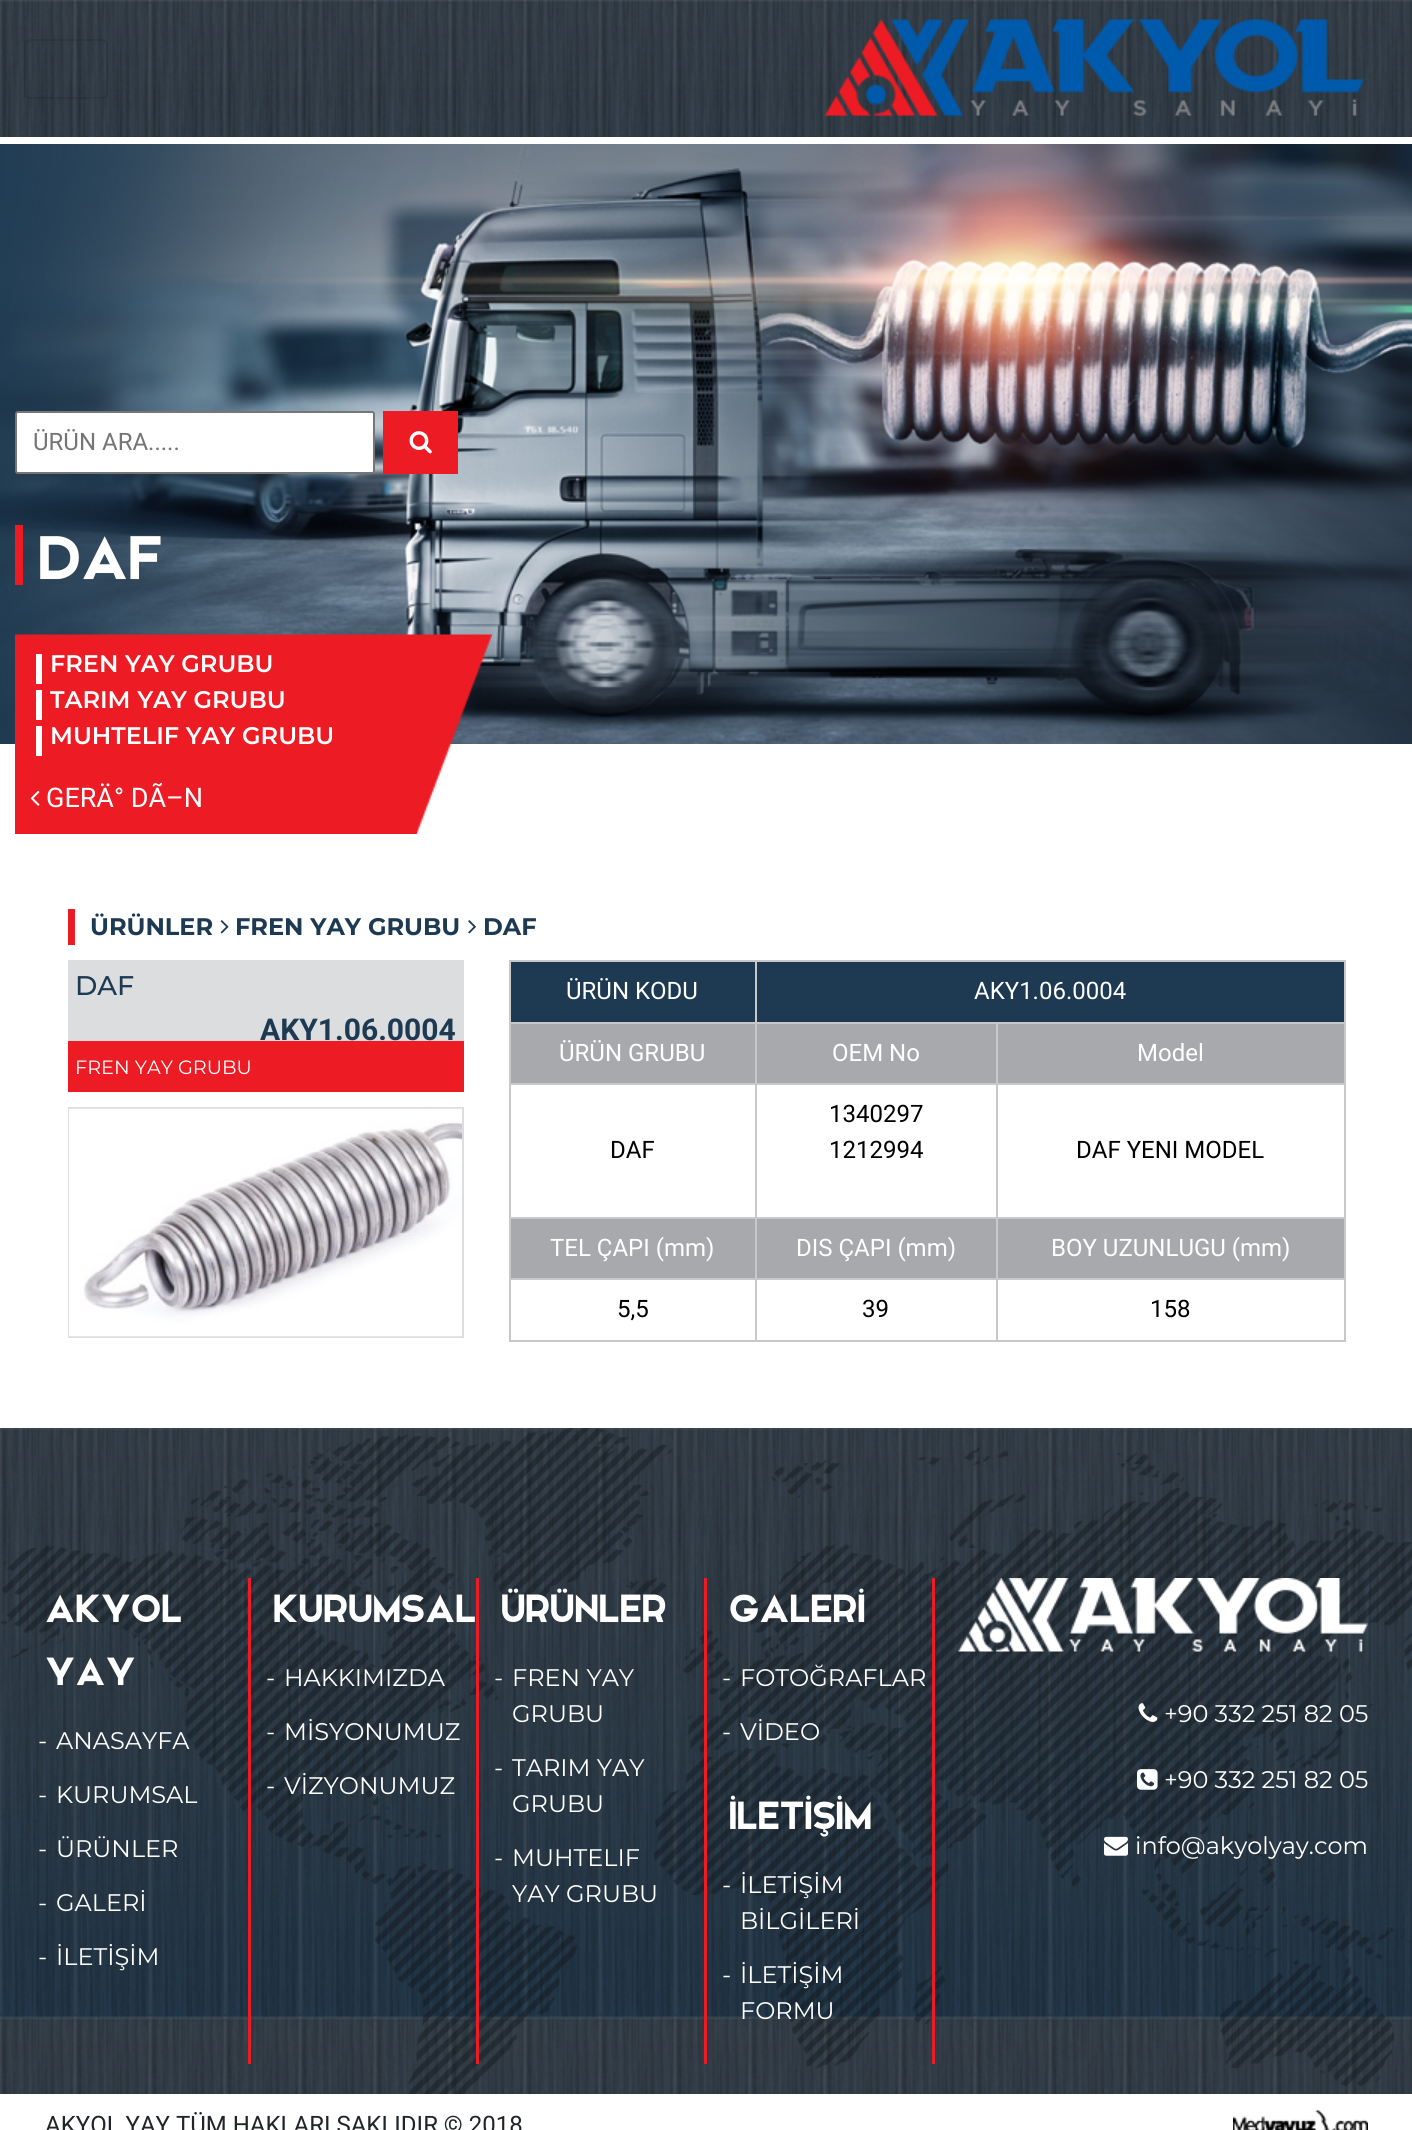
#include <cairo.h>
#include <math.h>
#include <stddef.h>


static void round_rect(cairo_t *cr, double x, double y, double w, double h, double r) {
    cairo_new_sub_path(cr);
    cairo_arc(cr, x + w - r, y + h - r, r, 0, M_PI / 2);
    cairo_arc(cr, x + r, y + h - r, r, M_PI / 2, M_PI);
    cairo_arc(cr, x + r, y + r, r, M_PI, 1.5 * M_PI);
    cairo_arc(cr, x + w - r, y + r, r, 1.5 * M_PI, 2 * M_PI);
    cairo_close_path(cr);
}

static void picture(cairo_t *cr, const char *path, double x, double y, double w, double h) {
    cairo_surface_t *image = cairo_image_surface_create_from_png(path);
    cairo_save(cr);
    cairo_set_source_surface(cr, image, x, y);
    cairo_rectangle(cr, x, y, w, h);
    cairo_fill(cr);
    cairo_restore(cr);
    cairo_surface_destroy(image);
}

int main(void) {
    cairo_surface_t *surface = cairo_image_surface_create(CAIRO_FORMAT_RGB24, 1412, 2130);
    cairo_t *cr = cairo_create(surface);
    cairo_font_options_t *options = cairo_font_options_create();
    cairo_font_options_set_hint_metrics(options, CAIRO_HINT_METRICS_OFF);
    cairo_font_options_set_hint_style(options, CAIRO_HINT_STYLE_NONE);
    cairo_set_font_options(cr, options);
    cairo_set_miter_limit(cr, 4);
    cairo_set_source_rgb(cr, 1, 1, 1);
    cairo_paint(cr);
    picture(cr, "img1.png", 0, 0, 1412, 137);
    round_rect(cr, 25, 40, 82, 58, 5);
    cairo_set_source_rgba(cr, 0, 0, 0, 0.1);
    cairo_stroke(cr);
    picture(cr, "img2.png", 825, 19, 539, 98);
    cairo_set_source_rgb(cr, 0.114, 0.227, 0.322);
    cairo_rectangle(cr, 0, 144, 482, 600);
    cairo_fill(cr);
    picture(cr, "img3.png", 0, 144, 1412, 600);
    cairo_set_source_rgb(cr, 1, 1, 1);
    round_rect(cr, 16, 412, 358, 61, 2);
    cairo_fill_preserve(cr);
    cairo_set_source_rgb(cr, 0.463, 0.463, 0.463);
    cairo_stroke(cr);
    cairo_select_font_face(cr, "Roboto", CAIRO_FONT_SLANT_NORMAL, CAIRO_FONT_WEIGHT_NORMAL);
    cairo_set_font_size(cr, 24);
    cairo_set_source_rgb(cr, 0.459, 0.459, 0.459);
    cairo_move_to(cr, 33, 450);
    cairo_show_text(cr, "ÜRÜN ARA.....");
    cairo_set_source_rgb(cr, 0.929, 0.11, 0.141);
    cairo_rectangle(cr, 383, 411, 75, 63);
    cairo_fill(cr);
    picture(cr, "img4.png", 409, 431, 23, 23);
    cairo_rectangle(cr, 15, 525, 8, 60);
    cairo_fill(cr);
    cairo_select_font_face(cr, "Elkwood", CAIRO_FONT_SLANT_NORMAL, CAIRO_FONT_WEIGHT_NORMAL);
    cairo_set_font_size(cr, 82);
    cairo_set_source_rgb(cr, 1, 1, 1);
    cairo_move_to(cr, 38, 579);
    cairo_show_text(cr, "DAF");
    picture(cr, "img5.png", 15, 634, 477, 200);
    cairo_rectangle(cr, 36, 654, 6, 30);
    cairo_fill(cr);
    cairo_select_font_face(cr, "Montserrat SemiBold", CAIRO_FONT_SLANT_NORMAL, CAIRO_FONT_WEIGHT_NORMAL);
    cairo_set_font_size(cr, 24);
    cairo_move_to(cr, 50, 672);
    cairo_show_text(cr, "FREN YAY GRUBU");
    cairo_rectangle(cr, 36, 690, 6, 30);
    cairo_fill(cr);
    cairo_move_to(cr, 50, 708);
    cairo_show_text(cr, "TARIM YAY GRUBU");
    cairo_rectangle(cr, 36, 726, 6, 30);
    cairo_fill(cr);
    cairo_move_to(cr, 50, 744);
    cairo_show_text(cr, "MUHTELIF YAY GRUBU");
    cairo_set_source_rgb(cr, 0.929, 0.11, 0.141);
    cairo_rectangle(cr, 415, 829, 2, 4);
    cairo_fill(cr);
    picture(cr, "img6.png", 30, 790, 10, 16);
    cairo_select_font_face(cr, "Roboto", CAIRO_FONT_SLANT_NORMAL, CAIRO_FONT_WEIGHT_NORMAL);
    cairo_set_font_size(cr, 27);
    cairo_set_source_rgb(cr, 1, 1, 1);
    cairo_move_to(cr, 46, 807);
    cairo_show_text(cr, "GERÄ° DÃ–N");
    cairo_set_source_rgb(cr, 0.929, 0.11, 0.141);
    cairo_rectangle(cr, 68, 909, 7, 36);
    cairo_fill(cr);
    cairo_select_font_face(cr, "Montserrat", CAIRO_FONT_SLANT_NORMAL, CAIRO_FONT_WEIGHT_BOLD);
    cairo_set_font_size(cr, 24);
    cairo_set_source_rgb(cr, 0.114, 0.227, 0.322);
    cairo_move_to(cr, 90, 935);
    cairo_show_text(cr, "ÜRÜNLER");
    picture(cr, "img7.png", 220, 920, 9, 14);
    cairo_move_to(cr, 235, 935);
    cairo_show_text(cr, "FREN YAY GRUBU");
    picture(cr, "img8.png", 468, 920, 8, 14);
    cairo_move_to(cr, 483, 935);
    cairo_show_text(cr, "DAF");
    cairo_set_source_rgb(cr, 0.863, 0.867, 0.871);
    cairo_rectangle(cr, 68, 960, 396, 81);
    cairo_fill(cr);
    cairo_select_font_face(cr, "Montserrat Medium", CAIRO_FONT_SLANT_NORMAL, CAIRO_FONT_WEIGHT_NORMAL);
    cairo_set_font_size(cr, 27);
    cairo_set_source_rgb(cr, 0.114, 0.227, 0.322);
    cairo_move_to(cr, 75, 995);
    cairo_show_text(cr, "DAF");
    cairo_select_font_face(cr, "Roboto", CAIRO_FONT_SLANT_NORMAL, CAIRO_FONT_WEIGHT_BOLD);
    cairo_set_font_size(cr, 30);
    cairo_move_to(cr, 260, 1040);
    cairo_show_text(cr, "AKY1.06.0004");
    cairo_set_source_rgb(cr, 0.929, 0.11, 0.141);
    cairo_rectangle(cr, 68, 1041, 396, 51);
    cairo_fill(cr);
    cairo_select_font_face(cr, "Montserrat", CAIRO_FONT_SLANT_NORMAL, CAIRO_FONT_WEIGHT_NORMAL);
    cairo_set_font_size(cr, 19.25);
    cairo_set_source_rgb(cr, 1, 1, 1);
    cairo_move_to(cr, 75, 1074);
    cairo_show_text(cr, "FREN YAY GRUBU");
    cairo_rectangle(cr, 69, 1108, 394, 229);
    cairo_set_source_rgb(cr, 0.863, 0.867, 0.871);
    cairo_stroke(cr);
    picture(cr, "img9.png", 69, 1108, 393, 229);
    cairo_set_source_rgb(cr, 0.114, 0.227, 0.322);
    cairo_rectangle(cr, 511, 962, 244, 60);
    cairo_fill(cr);
    cairo_set_source_rgb(cr, 0.78, 0.784, 0.792);
    cairo_rectangle(cr, 755, 960, 591, 2);
    cairo_fill(cr);
    cairo_rectangle(cr, 996, 1022, 350, 2);
    cairo_fill(cr);
    cairo_rectangle(cr, 996, 1083, 350, 2);
    cairo_fill(cr);
    cairo_rectangle(cr, 996, 1217, 350, 2);
    cairo_fill(cr);
    cairo_rectangle(cr, 996, 1278, 350, 2);
    cairo_fill(cr);
    cairo_rectangle(cr, 1344, 1278, 2, 63);
    cairo_fill(cr);
    cairo_rectangle(cr, 996, 1340, 350, 2);
    cairo_fill(cr);
    cairo_rectangle(cr, 996, 1278, 2, 63);
    cairo_fill(cr);
    cairo_rectangle(cr, 755, 1278, 243, 2);
    cairo_fill(cr);
    cairo_rectangle(cr, 996, 1217, 2, 63);
    cairo_fill(cr);
    cairo_rectangle(cr, 755, 1217, 243, 2);
    cairo_fill(cr);
    cairo_rectangle(cr, 996, 1083, 2, 135);
    cairo_fill(cr);
    cairo_rectangle(cr, 755, 1083, 243, 2);
    cairo_fill(cr);
    cairo_rectangle(cr, 996, 1022, 2, 63);
    cairo_fill(cr);
    cairo_rectangle(cr, 755, 1022, 243, 2);
    cairo_fill(cr);
    cairo_rectangle(cr, 755, 1340, 243, 2);
    cairo_fill(cr);
    cairo_rectangle(cr, 755, 1278, 2, 63);
    cairo_fill(cr);
    cairo_rectangle(cr, 509, 1278, 247, 2);
    cairo_fill(cr);
    cairo_rectangle(cr, 755, 1217, 2, 63);
    cairo_fill(cr);
    cairo_rectangle(cr, 509, 1217, 247, 2);
    cairo_fill(cr);
    cairo_rectangle(cr, 755, 1083, 2, 135);
    cairo_fill(cr);
    cairo_rectangle(cr, 509, 1083, 247, 2);
    cairo_fill(cr);
    cairo_rectangle(cr, 755, 1022, 2, 63);
    cairo_fill(cr);
    cairo_rectangle(cr, 509, 1022, 247, 2);
    cairo_fill(cr);
    cairo_rectangle(cr, 755, 960, 2, 63);
    cairo_fill(cr);
    cairo_rectangle(cr, 509, 960, 247, 2);
    cairo_fill(cr);
    cairo_rectangle(cr, 509, 1340, 247, 2);
    cairo_fill(cr);
    cairo_rectangle(cr, 509, 1278, 2, 63);
    cairo_fill(cr);
    cairo_rectangle(cr, 509, 1217, 2, 63);
    cairo_fill(cr);
    cairo_rectangle(cr, 509, 1083, 2, 135);
    cairo_fill(cr);
    cairo_rectangle(cr, 509, 1022, 2, 63);
    cairo_fill(cr);
    cairo_rectangle(cr, 509, 960, 2, 63);
    cairo_fill(cr);
    cairo_select_font_face(cr, "Roboto", CAIRO_FONT_SLANT_NORMAL, CAIRO_FONT_WEIGHT_NORMAL);
    cairo_set_font_size(cr, 24);
    cairo_set_source_rgb(cr, 1, 1, 1);
    cairo_move_to(cr, 566, 999);
    cairo_show_text(cr, "ÜRÜN KODU");
    cairo_set_source_rgb(cr, 0.114, 0.227, 0.322);
    cairo_rectangle(cr, 757, 962, 587, 60);
    cairo_fill(cr);
    cairo_set_source_rgb(cr, 0.78, 0.784, 0.792);
    cairo_rectangle(cr, 1344, 1217, 2, 63);
    cairo_fill(cr);
    cairo_rectangle(cr, 1344, 1083, 2, 135);
    cairo_fill(cr);
    cairo_rectangle(cr, 1344, 1022, 2, 63);
    cairo_fill(cr);
    cairo_rectangle(cr, 1344, 960, 2, 63);
    cairo_fill(cr);
    cairo_set_source_rgb(cr, 1, 1, 1);
    cairo_move_to(cr, 974, 999);
    cairo_show_text(cr, "AKY1.06.0004");
    cairo_set_source_rgb(cr, 0.655, 0.663, 0.675);
    cairo_rectangle(cr, 511, 1024, 244, 59);
    cairo_fill(cr);
    cairo_set_source_rgb(cr, 1, 1, 1);
    cairo_move_to(cr, 559, 1061);
    cairo_show_text(cr, "ÜRÜN GRUBU");
    cairo_set_source_rgb(cr, 0.655, 0.663, 0.675);
    cairo_rectangle(cr, 757, 1024, 239, 59);
    cairo_fill(cr);
    cairo_set_source_rgb(cr, 1, 1, 1);
    cairo_move_to(cr, 832, 1061);
    cairo_show_text(cr, "OEM No");
    cairo_set_source_rgb(cr, 0.655, 0.663, 0.675);
    cairo_rectangle(cr, 998, 1024, 346, 59);
    cairo_fill(cr);
    cairo_set_source_rgb(cr, 1, 1, 1);
    cairo_move_to(cr, 1137, 1061);
    cairo_show_text(cr, "Model");
    cairo_set_source_rgb(cr, 0, 0, 0);
    cairo_move_to(cr, 610, 1158);
    cairo_show_text(cr, "DAF");
    cairo_move_to(cr, 829, 1122);
    cairo_show_text(cr, "1340297");
    cairo_move_to(cr, 829, 1158);
    cairo_show_text(cr, "1212994");
    cairo_move_to(cr, 1076, 1158);
    cairo_show_text(cr, "DAF YENI MODEL");
    cairo_set_source_rgb(cr, 0.655, 0.663, 0.675);
    cairo_rectangle(cr, 511, 1219, 244, 59);
    cairo_fill(cr);
    cairo_set_source_rgb(cr, 1, 1, 1);
    cairo_move_to(cr, 550, 1256);
    cairo_show_text(cr, "TEL ÇAPI (mm)");
    cairo_set_source_rgb(cr, 0.655, 0.663, 0.675);
    cairo_rectangle(cr, 757, 1219, 239, 59);
    cairo_fill(cr);
    cairo_set_source_rgb(cr, 1, 1, 1);
    cairo_move_to(cr, 796, 1256);
    cairo_show_text(cr, "DIS ÇAPI (mm)");
    cairo_set_source_rgb(cr, 0.655, 0.663, 0.675);
    cairo_rectangle(cr, 998, 1219, 346, 59);
    cairo_fill(cr);
    cairo_set_source_rgb(cr, 1, 1, 1);
    cairo_move_to(cr, 1051, 1256);
    cairo_show_text(cr, "BOY UZUNLUGU (mm)");
    cairo_set_source_rgb(cr, 0, 0, 0);
    cairo_move_to(cr, 617, 1317);
    cairo_show_text(cr, "5,5");
    cairo_move_to(cr, 862, 1317);
    cairo_show_text(cr, "39");
    cairo_move_to(cr, 1150, 1317);
    cairo_show_text(cr, "158");
    picture(cr, "img10.png", 0, 1428, 1412, 666);
    picture(cr, "img11.png", 0, 1428, 1412, 666);
    cairo_set_source_rgb(cr, 0.929, 0.11, 0.141);
    cairo_rectangle(cr, 248, 1578, 3, 486);
    cairo_fill(cr);
    cairo_select_font_face(cr, "Elkwood", CAIRO_FONT_SLANT_NORMAL, CAIRO_FONT_WEIGHT_NORMAL);
    cairo_set_font_size(cr, 52.5);
    cairo_set_source_rgb(cr, 1, 1, 1);
    cairo_move_to(cr, 45, 1622);
    cairo_show_text(cr, "AKYOL");
    cairo_move_to(cr, 45, 1685);
    cairo_show_text(cr, "YAY");
    cairo_select_font_face(cr, "Montserrat", CAIRO_FONT_SLANT_NORMAL, CAIRO_FONT_WEIGHT_NORMAL);
    cairo_set_font_size(cr, 24);
    cairo_move_to(cr, 38, 1749);
    cairo_show_text(cr, "-");
    cairo_move_to(cr, 56, 1749);
    cairo_show_text(cr, "ANASAYFA");
    cairo_move_to(cr, 38, 1803);
    cairo_show_text(cr, "-");
    cairo_move_to(cr, 56, 1803);
    cairo_show_text(cr, "KURUMSAL");
    cairo_move_to(cr, 38, 1857);
    cairo_show_text(cr, "-");
    cairo_move_to(cr, 56, 1857);
    cairo_show_text(cr, "ÜRÜNLER");
    cairo_move_to(cr, 38, 1911);
    cairo_show_text(cr, "-");
    cairo_move_to(cr, 56, 1911);
    cairo_show_text(cr, "GALERİ");
    cairo_move_to(cr, 38, 1965);
    cairo_show_text(cr, "-");
    cairo_move_to(cr, 56, 1965);
    cairo_show_text(cr, "İLETİŞİM");
    cairo_set_source_rgb(cr, 0.929, 0.11, 0.141);
    cairo_rectangle(cr, 476, 1578, 3, 486);
    cairo_fill(cr);
    cairo_select_font_face(cr, "Elkwood", CAIRO_FONT_SLANT_NORMAL, CAIRO_FONT_WEIGHT_NORMAL);
    cairo_set_font_size(cr, 52.5);
    cairo_set_source_rgb(cr, 1, 1, 1);
    cairo_move_to(cr, 273, 1622);
    cairo_show_text(cr, "KURUMSAL");
    cairo_select_font_face(cr, "Montserrat", CAIRO_FONT_SLANT_NORMAL, CAIRO_FONT_WEIGHT_NORMAL);
    cairo_set_font_size(cr, 24);
    cairo_move_to(cr, 266, 1686);
    cairo_show_text(cr, "-");
    cairo_move_to(cr, 284, 1686);
    cairo_show_text(cr, "HAKKIMIZDA");
    cairo_move_to(cr, 266, 1740);
    cairo_show_text(cr, "-");
    cairo_move_to(cr, 284, 1740);
    cairo_show_text(cr, "MİSYONUMUZ");
    cairo_move_to(cr, 266, 1794);
    cairo_show_text(cr, "-");
    cairo_move_to(cr, 284, 1794);
    cairo_show_text(cr, "VİZYONUMUZ");
    cairo_set_source_rgb(cr, 0.929, 0.11, 0.141);
    cairo_rectangle(cr, 704, 1578, 3, 486);
    cairo_fill(cr);
    cairo_select_font_face(cr, "Elkwood", CAIRO_FONT_SLANT_NORMAL, CAIRO_FONT_WEIGHT_NORMAL);
    cairo_set_font_size(cr, 52.5);
    cairo_set_source_rgb(cr, 1, 1, 1);
    cairo_move_to(cr, 501, 1622);
    cairo_show_text(cr, "ÜRÜNLER");
    cairo_select_font_face(cr, "Montserrat", CAIRO_FONT_SLANT_NORMAL, CAIRO_FONT_WEIGHT_NORMAL);
    cairo_set_font_size(cr, 24);
    cairo_move_to(cr, 494, 1686);
    cairo_show_text(cr, "-");
    cairo_move_to(cr, 512, 1686);
    cairo_show_text(cr, "FREN YAY");
    cairo_move_to(cr, 512, 1722);
    cairo_show_text(cr, "GRUBU");
    cairo_move_to(cr, 494, 1776);
    cairo_show_text(cr, "-");
    cairo_move_to(cr, 512, 1776);
    cairo_show_text(cr, "TARIM YAY");
    cairo_move_to(cr, 512, 1812);
    cairo_show_text(cr, "GRUBU");
    cairo_move_to(cr, 494, 1866);
    cairo_show_text(cr, "-");
    cairo_move_to(cr, 512, 1866);
    cairo_show_text(cr, "MUHTELIF");
    cairo_move_to(cr, 512, 1902);
    cairo_show_text(cr, "YAY GRUBU");
    cairo_set_source_rgb(cr, 0.929, 0.11, 0.141);
    cairo_rectangle(cr, 932, 1578, 3, 486);
    cairo_fill(cr);
    cairo_select_font_face(cr, "Elkwood", CAIRO_FONT_SLANT_NORMAL, CAIRO_FONT_WEIGHT_NORMAL);
    cairo_set_font_size(cr, 52.5);
    cairo_set_source_rgb(cr, 1, 1, 1);
    cairo_move_to(cr, 729, 1622);
    cairo_show_text(cr, "GALERİ");
    cairo_select_font_face(cr, "Montserrat", CAIRO_FONT_SLANT_NORMAL, CAIRO_FONT_WEIGHT_NORMAL);
    cairo_set_font_size(cr, 24);
    cairo_move_to(cr, 722, 1686);
    cairo_show_text(cr, "-");
    cairo_move_to(cr, 740, 1686);
    cairo_show_text(cr, "FOTOĞRAFLAR");
    cairo_move_to(cr, 722, 1740);
    cairo_show_text(cr, "-");
    cairo_move_to(cr, 740, 1740);
    cairo_show_text(cr, "VİDEO");
    cairo_select_font_face(cr, "Elkwood", CAIRO_FONT_SLANT_NORMAL, CAIRO_FONT_WEIGHT_NORMAL);
    cairo_set_font_size(cr, 52.5);
    cairo_move_to(cr, 729, 1829);
    cairo_show_text(cr, "İLETİŞİM");
    cairo_select_font_face(cr, "Montserrat", CAIRO_FONT_SLANT_NORMAL, CAIRO_FONT_WEIGHT_NORMAL);
    cairo_set_font_size(cr, 24);
    cairo_move_to(cr, 722, 1893);
    cairo_show_text(cr, "-");
    cairo_move_to(cr, 740, 1893);
    cairo_show_text(cr, "İLETİŞİM");
    cairo_move_to(cr, 740, 1929);
    cairo_show_text(cr, "BİLGİLERİ");
    cairo_move_to(cr, 722, 1983);
    cairo_show_text(cr, "-");
    cairo_move_to(cr, 740, 1983);
    cairo_show_text(cr, "İLETİŞİM");
    cairo_move_to(cr, 740, 2019);
    cairo_show_text(cr, "FORMU");
    picture(cr, "img12.png", 958, 1578, 410, 74);
    picture(cr, "img13.png", 1138, 1703, 20, 19);
    cairo_move_to(cr, 1164, 1722);
    cairo_show_text(cr, "+90 332 251 82 05");
    picture(cr, "img14.png", 1137, 1769, 21, 21);
    cairo_move_to(cr, 1164, 1788);
    cairo_show_text(cr, "+90 332 251 82 05");
    picture(cr, "img15.png", 1104, 1836, 24, 20);
    cairo_move_to(cr, 1135, 1854);
    cairo_show_text(cr, "info@akyolyay.com");
    cairo_select_font_face(cr, "Roboto", CAIRO_FONT_SLANT_NORMAL, CAIRO_FONT_WEIGHT_NORMAL);
    cairo_set_source_rgb(cr, 0.129, 0.145, 0.161);
    cairo_move_to(cr, 45, 2133);
    cairo_show_text(cr, "AKYOL YAY TÜM HAKLARI SAKLIDIR © 2018");
    picture(cr, "img16.png", 1233, 2110, 135, 20);
    cairo_surface_write_to_png(surface, "page.png");
    cairo_font_options_destroy(options);
    cairo_destroy(cr);
    cairo_surface_destroy(surface);
    return 0;
}
